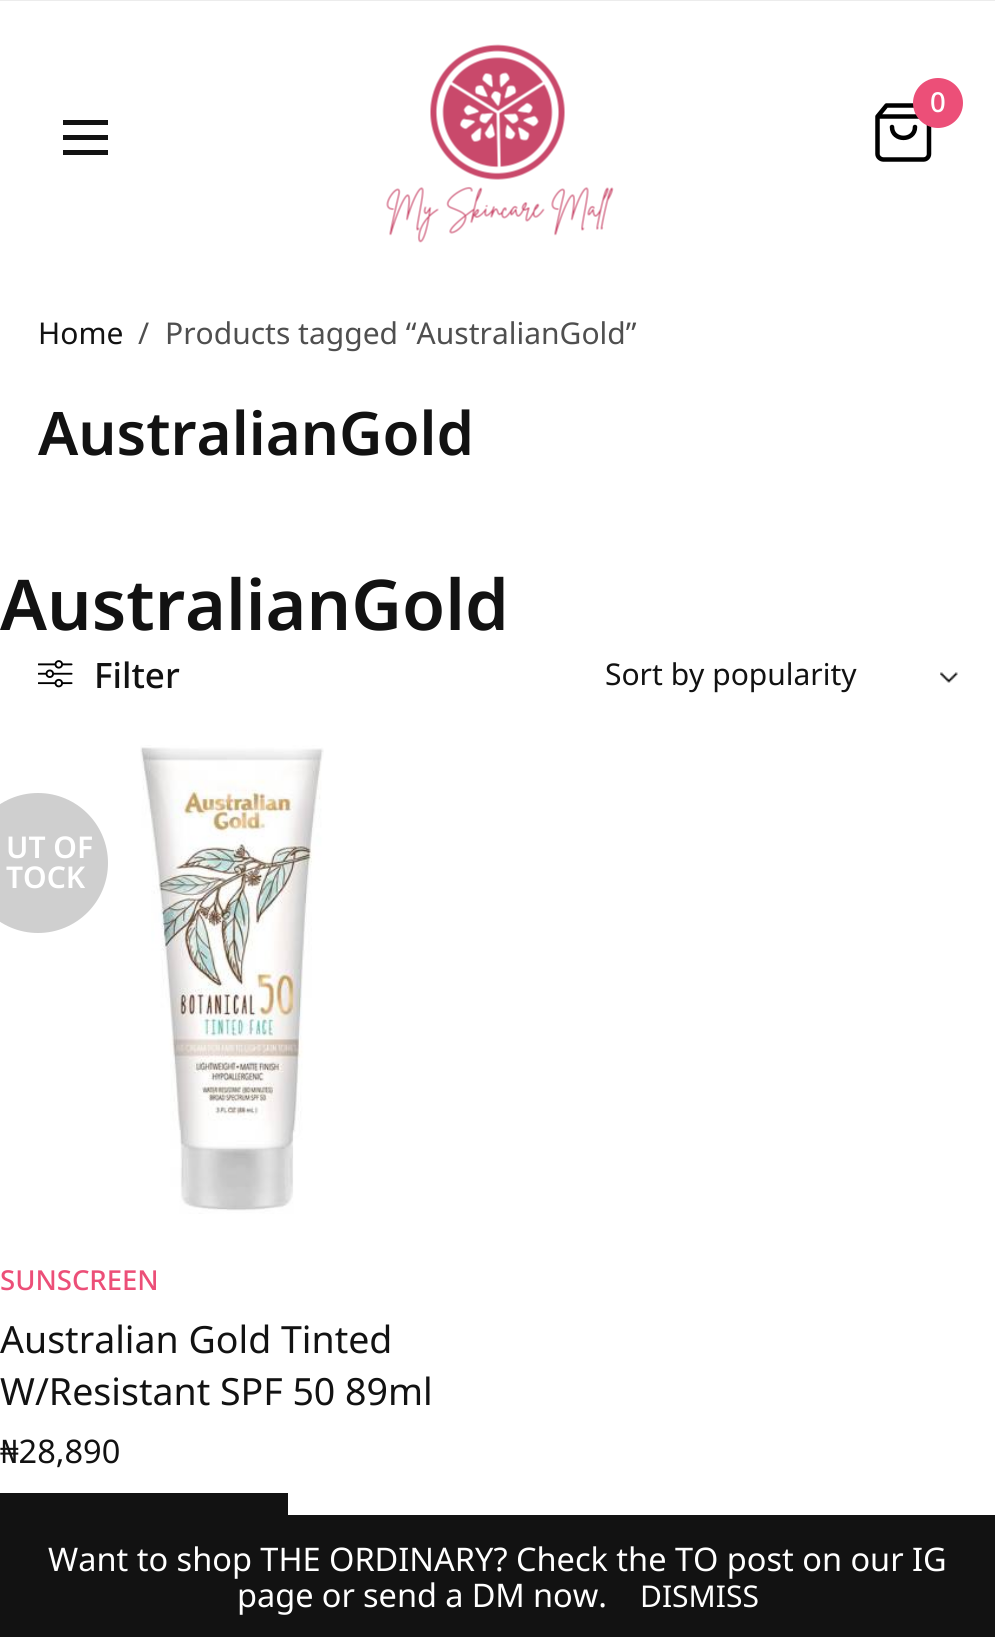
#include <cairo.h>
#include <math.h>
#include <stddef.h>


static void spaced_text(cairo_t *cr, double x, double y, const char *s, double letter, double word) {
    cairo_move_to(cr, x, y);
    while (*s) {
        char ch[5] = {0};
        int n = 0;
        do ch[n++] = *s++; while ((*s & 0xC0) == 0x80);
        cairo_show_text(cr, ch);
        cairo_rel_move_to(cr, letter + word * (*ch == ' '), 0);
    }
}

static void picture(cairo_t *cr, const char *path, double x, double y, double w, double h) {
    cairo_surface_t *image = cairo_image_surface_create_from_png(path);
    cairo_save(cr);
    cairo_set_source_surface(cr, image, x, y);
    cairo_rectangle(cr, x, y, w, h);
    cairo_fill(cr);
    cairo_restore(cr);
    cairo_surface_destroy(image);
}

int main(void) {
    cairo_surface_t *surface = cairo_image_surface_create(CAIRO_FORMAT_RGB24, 995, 1637);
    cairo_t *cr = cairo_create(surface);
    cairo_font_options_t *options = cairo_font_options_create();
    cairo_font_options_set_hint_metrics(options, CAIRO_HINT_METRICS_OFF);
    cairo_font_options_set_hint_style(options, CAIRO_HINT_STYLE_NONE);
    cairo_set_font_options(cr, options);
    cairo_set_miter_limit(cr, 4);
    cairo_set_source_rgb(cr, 1, 1, 1);
    cairo_paint(cr);
    cairo_set_source_rgb(cr, 0.922, 0.922, 0.922);
    cairo_rectangle(cr, 0, 0, 995, 1);
    cairo_fill(cr);
    picture(cr, "img1.png", 386, 44, 228, 199);
    cairo_new_path(cr);
    cairo_move_to(cr, 886.5, 105.5);
    cairo_line_to(cr, 877.5, 116.5);
    cairo_line_to(cr, 877.5, 154);
    cairo_curve_to(cr, 877.5, 157, 880.5, 159.5, 883.5, 159.5);
    cairo_line_to(cr, 923.5, 159.5);
    cairo_curve_to(cr, 926.5, 159.5, 929, 157, 929, 154);
    cairo_line_to(cr, 929, 116.5);
    cairo_line_to(cr, 920.5, 105.5);
    cairo_close_path(cr);
    cairo_move_to(cr, 877.5, 116.5);
    cairo_line_to(cr, 929, 116.5);
    cairo_move_to(cr, 915, 127);
    cairo_curve_to(cr, 915, 141.5, 892, 141.5, 892, 127);
    cairo_set_source_rgb(cr, 0, 0, 0);
    cairo_set_line_width(cr, 4.5);
    cairo_set_line_cap(cr, CAIRO_LINE_CAP_ROUND);
    cairo_set_line_join(cr, CAIRO_LINE_JOIN_ROUND);
    cairo_stroke(cr);
    cairo_set_source_rgb(cr, 0.922, 0.31, 0.471);
    cairo_arc(cr, 938, 103, 25, 0, 2 * M_PI);
    cairo_fill(cr);
    cairo_select_font_face(cr, "Noto Sans Medium", CAIRO_FONT_SLANT_NORMAL, CAIRO_FONT_WEIGHT_NORMAL);
    cairo_set_font_size(cr, 27.5);
    cairo_set_source_rgb(cr, 1, 1, 1);
    cairo_move_to(cr, 930, 112);
    cairo_show_text(cr, "0");
    cairo_set_source_rgb(cr, 0.071, 0.071, 0.071);
    cairo_rectangle(cr, 63, 120, 45, 5);
    cairo_fill(cr);
    cairo_rectangle(cr, 63, 135, 45, 5);
    cairo_fill(cr);
    cairo_rectangle(cr, 63, 150, 45, 5);
    cairo_fill(cr);
    cairo_select_font_face(cr, "Noto Sans", CAIRO_FONT_SLANT_NORMAL, CAIRO_FONT_WEIGHT_NORMAL);
    cairo_set_font_size(cr, 30);
    cairo_move_to(cr, 38, 344);
    cairo_show_text(cr, "Home");
    cairo_set_source_rgb(cr, 0.31, 0.31, 0.31);
    cairo_move_to(cr, 138, 344);
    cairo_show_text(cr, "/");
    cairo_move_to(cr, 165, 344);
    cairo_show_text(cr, "Products tagged “AustralianGold”");
    cairo_select_font_face(cr, "Noto Sans SemiBold", CAIRO_FONT_SLANT_NORMAL, CAIRO_FONT_WEIGHT_NORMAL);
    cairo_set_font_size(cr, 60);
    cairo_set_source_rgb(cr, 0.071, 0.071, 0.071);
    cairo_move_to(cr, 38, 455);
    cairo_show_text(cr, "AustralianGold");
    cairo_set_font_size(cr, 70);
    cairo_move_to(cr, 0, 630);
    cairo_show_text(cr, "AustralianGold");
    picture(cr, "img2.png", 38, 660, 35, 28);
    cairo_select_font_face(cr, "Noto Sans Medium", CAIRO_FONT_SLANT_NORMAL, CAIRO_FONT_WEIGHT_NORMAL);
    cairo_set_font_size(cr, 35);
    cairo_move_to(cr, 94, 688);
    cairo_show_text(cr, "Filter");
    picture(cr, "img3.png", 940, 672, 18, 11);
    cairo_select_font_face(cr, "Noto Sans", CAIRO_FONT_SLANT_NORMAL, CAIRO_FONT_WEIGHT_NORMAL);
    cairo_set_font_size(cr, 30);
    cairo_move_to(cr, 605, 685);
    cairo_show_text(cr, "Sort by popularity");
    cairo_set_source_rgb(cr, 0.812, 0.812, 0.812);
    cairo_new_path(cr);
    cairo_arc(cr, 38, 863, 70, 0, 2 * M_PI);
    cairo_fill(cr);
    cairo_select_font_face(cr, "Noto Sans SemiBold", CAIRO_FONT_SLANT_NORMAL, CAIRO_FONT_WEIGHT_NORMAL);
    cairo_set_source_rgb(cr, 1, 1, 1);
    cairo_move_to(cr, 6, 858);
    cairo_show_text(cr, "UT OF");
    cairo_move_to(cr, 6, 888);
    cairo_show_text(cr, "TOCK");
    picture(cr, "img4.png", 140, 745, 184, 469);
    cairo_select_font_face(cr, "Noto Sans Medium", CAIRO_FONT_SLANT_NORMAL, CAIRO_FONT_WEIGHT_NORMAL);
    cairo_set_font_size(cr, 27.5);
    cairo_set_source_rgb(cr, 0.922, 0.31, 0.471);
    cairo_move_to(cr, 0, 1290);
    cairo_show_text(cr, "SUNSCREEN");
    cairo_select_font_face(cr, "Noto Sans", CAIRO_FONT_SLANT_NORMAL, CAIRO_FONT_WEIGHT_NORMAL);
    cairo_set_font_size(cr, 37.5);
    cairo_set_source_rgb(cr, 0.071, 0.071, 0.071);
    cairo_move_to(cr, 0, 1353);
    cairo_show_text(cr, "Australian Gold Tinted");
    cairo_move_to(cr, 0, 1405);
    cairo_show_text(cr, "W/Resistant SPF 50 89ml");
    cairo_set_font_size(cr, 32.5);
    cairo_move_to(cr, 0, 1463);
    cairo_show_text(cr, "₦28,890");
    cairo_rectangle(cr, 0, 1493, 288, 22);
    cairo_fill(cr);
    cairo_rectangle(cr, 0, 1515, 995, 122);
    cairo_fill(cr);
    cairo_set_source_rgb(cr, 1, 1, 1);
    cairo_move_to(cr, 48, 1571);
    cairo_show_text(cr, "Want to shop THE ORDINARY? Check the TO post on our IG");
    spaced_text(cr, 237, 1607, "page or send a DM now.", 0, -0.25);
    cairo_set_font_size(cr, 30);
    cairo_move_to(cr, 640, 1607);
    cairo_show_text(cr, "DISMISS");
    cairo_surface_write_to_png(surface, "page.png");
    cairo_font_options_destroy(options);
    cairo_destroy(cr);
    cairo_surface_destroy(surface);
    return 0;
}
